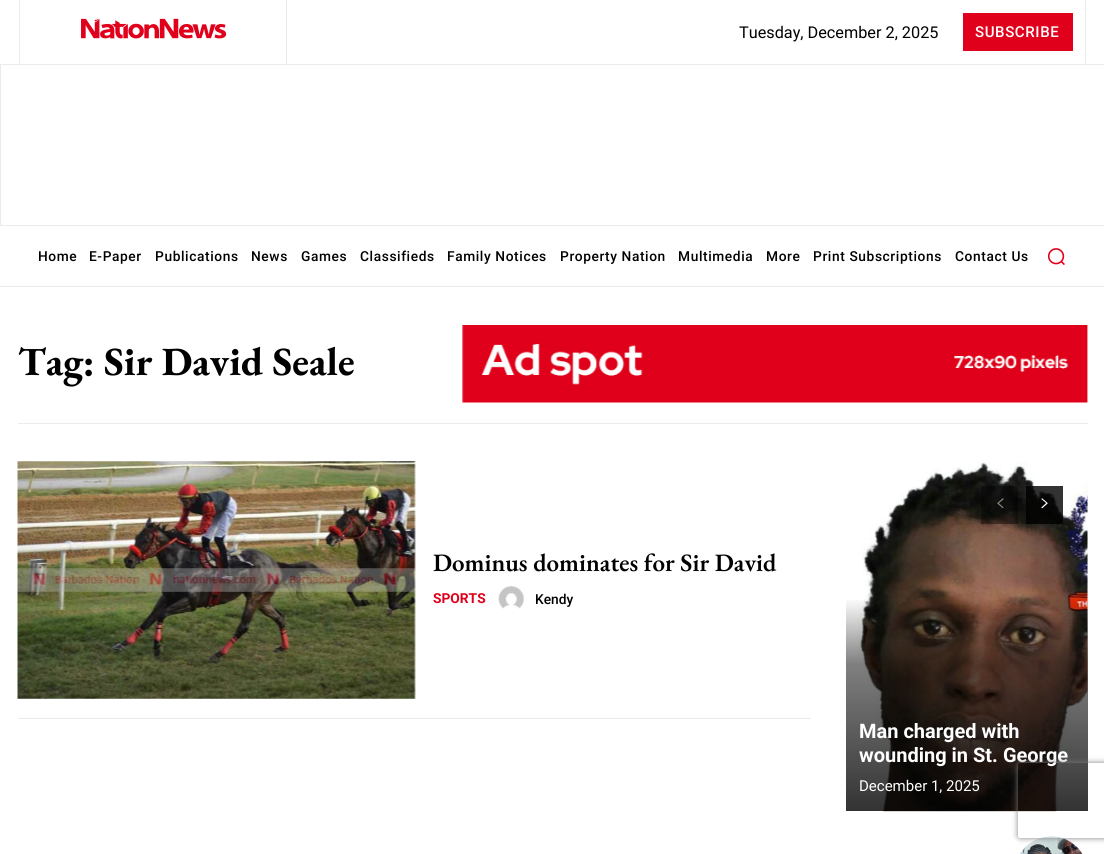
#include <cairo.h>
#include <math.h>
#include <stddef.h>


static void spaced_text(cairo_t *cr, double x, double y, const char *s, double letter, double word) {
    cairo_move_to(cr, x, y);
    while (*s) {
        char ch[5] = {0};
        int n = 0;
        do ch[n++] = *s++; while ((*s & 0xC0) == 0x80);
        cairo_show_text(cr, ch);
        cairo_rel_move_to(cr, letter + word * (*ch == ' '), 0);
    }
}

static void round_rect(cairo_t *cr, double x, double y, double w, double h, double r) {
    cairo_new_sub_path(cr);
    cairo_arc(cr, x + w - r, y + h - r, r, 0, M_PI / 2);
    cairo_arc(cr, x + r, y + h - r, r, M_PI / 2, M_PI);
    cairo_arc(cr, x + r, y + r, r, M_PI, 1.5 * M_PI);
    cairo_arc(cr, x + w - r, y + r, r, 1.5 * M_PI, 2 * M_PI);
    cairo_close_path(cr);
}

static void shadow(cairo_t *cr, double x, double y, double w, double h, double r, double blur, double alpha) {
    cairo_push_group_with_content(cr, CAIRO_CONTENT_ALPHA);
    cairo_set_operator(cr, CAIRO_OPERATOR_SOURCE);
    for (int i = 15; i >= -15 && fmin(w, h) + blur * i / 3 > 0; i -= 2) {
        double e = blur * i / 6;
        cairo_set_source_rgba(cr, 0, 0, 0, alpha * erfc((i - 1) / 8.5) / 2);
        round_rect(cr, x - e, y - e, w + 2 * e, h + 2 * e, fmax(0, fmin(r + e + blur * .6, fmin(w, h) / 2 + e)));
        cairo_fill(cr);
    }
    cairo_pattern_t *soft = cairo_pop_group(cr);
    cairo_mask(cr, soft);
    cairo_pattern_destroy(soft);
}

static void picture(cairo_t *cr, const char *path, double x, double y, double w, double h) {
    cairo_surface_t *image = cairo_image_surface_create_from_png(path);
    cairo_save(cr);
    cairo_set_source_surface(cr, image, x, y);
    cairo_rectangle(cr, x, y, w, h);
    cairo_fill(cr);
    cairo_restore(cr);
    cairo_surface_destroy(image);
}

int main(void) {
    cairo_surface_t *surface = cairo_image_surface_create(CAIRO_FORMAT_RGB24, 1104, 854);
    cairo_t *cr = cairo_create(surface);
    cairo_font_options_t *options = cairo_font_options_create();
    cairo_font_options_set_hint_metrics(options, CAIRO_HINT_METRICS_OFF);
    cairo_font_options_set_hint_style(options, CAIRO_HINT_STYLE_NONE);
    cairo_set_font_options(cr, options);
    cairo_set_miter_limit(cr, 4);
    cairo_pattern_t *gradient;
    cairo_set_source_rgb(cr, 1, 1, 1);
    cairo_paint(cr);
    cairo_set_source_rgb(cr, 0.918, 0.918, 0.918);
    cairo_rectangle(cr, 19, 0, 1, 64);
    cairo_fill(cr);
    picture(cr, "img1.png", 81, 18, 146, 21);
    cairo_rectangle(cr, 1085, 0, 1, 64);
    cairo_fill(cr);
    cairo_rectangle(cr, 286, 0, 1, 64);
    cairo_fill(cr);
    cairo_select_font_face(cr, "Roboto", CAIRO_FONT_SLANT_NORMAL, CAIRO_FONT_WEIGHT_NORMAL);
    cairo_set_font_size(cr, 16.25);
    cairo_set_source_rgb(cr, 0, 0, 0);
    cairo_move_to(cr, 739, 38);
    cairo_show_text(cr, "Tuesday, December 2, 2025");
    cairo_set_source_rgb(cr, 0.878, 0, 0.106);
    cairo_rectangle(cr, 963, 13, 110, 38);
    cairo_fill(cr);
    cairo_select_font_face(cr, "Roboto Medium", CAIRO_FONT_SLANT_NORMAL, CAIRO_FONT_WEIGHT_NORMAL);
    cairo_set_font_size(cr, 15);
    cairo_set_source_rgb(cr, 1, 1, 1);
    spaced_text(cr, 975, 37, "SUBSCRIBE", 0.6, 0);
    cairo_set_source_rgb(cr, 0.918, 0.918, 0.918);
    cairo_rectangle(cr, 0, 64, 1104, 1);
    cairo_fill(cr);
    cairo_rectangle(cr, 0, 225, 1104, 1);
    cairo_fill(cr);
    cairo_rectangle(cr, 0, 64, 1, 162);
    cairo_fill(cr);
    cairo_set_font_size(cr, 13.75);
    cairo_set_source_rgb(cr, 0, 0, 0);
    spaced_text(cr, 38, 261, "Home", 0.6, 0);
    spaced_text(cr, 89, 261, "E-Paper", 0.6, 0);
    spaced_text(cr, 155, 261, "Publications", 0.6, 0);
    spaced_text(cr, 251, 261, "News", 0.6, 0);
    spaced_text(cr, 301, 261, "Games", 0.6, 0);
    spaced_text(cr, 360, 261, "Classifieds", 0.6, 0);
    spaced_text(cr, 447, 261, "Family Notices", 0.6, 0);
    spaced_text(cr, 560, 261, "Property Nation", 0.6, 0);
    spaced_text(cr, 678, 261, "Multimedia", 0.6, 0);
    spaced_text(cr, 766, 261, "More", 0.6, 0);
    spaced_text(cr, 813, 261, "Print Subscriptions", 0.6, 0);
    spaced_text(cr, 955, 261, "Contact Us", 0.6, 0);
    picture(cr, "img2.png", 1047, 248, 18, 17);
    cairo_set_source_rgb(cr, 0.918, 0.918, 0.918);
    cairo_rectangle(cr, 0, 286, 1104, 1);
    cairo_fill(cr);
    cairo_rectangle(cr, 18, 423, 1070, 1);
    cairo_fill(cr);
    cairo_select_font_face(cr, "EB Garamond", CAIRO_FONT_SLANT_NORMAL, CAIRO_FONT_WEIGHT_BOLD);
    cairo_set_font_size(cr, 40);
    cairo_set_source_rgb(cr, 0, 0, 0);
    cairo_move_to(cr, 18, 375);
    cairo_show_text(cr, "Tag: Sir David Seale");
    picture(cr, "img3.png", 462, 325, 626, 78);
    cairo_set_source_rgb(cr, 0.918, 0.918, 0.918);
    cairo_rectangle(cr, 18, 718, 793, 1);
    cairo_fill(cr);
    picture(cr, "img4.png", 17, 461, 399, 238);
    cairo_select_font_face(cr, "EB Garamond SemiBold", CAIRO_FONT_SLANT_NORMAL, CAIRO_FONT_WEIGHT_NORMAL);
    cairo_set_font_size(cr, 25);
    cairo_set_source_rgb(cr, 0, 0, 0);
    cairo_move_to(cr, 433, 571);
    cairo_show_text(cr, "Dominus dominates for Sir David");
    cairo_select_font_face(cr, "Roboto", CAIRO_FONT_SLANT_NORMAL, CAIRO_FONT_WEIGHT_BOLD);
    cairo_set_font_size(cr, 13.75);
    cairo_set_source_rgb(cr, 0.878, 0, 0.106);
    cairo_move_to(cr, 433, 603);
    cairo_show_text(cr, "SPORTS");
    picture(cr, "img5.png", 498, 586, 26, 23);
    cairo_select_font_face(cr, "Roboto Medium", CAIRO_FONT_SLANT_NORMAL, CAIRO_FONT_WEIGHT_NORMAL);
    cairo_set_source_rgb(cr, 0, 0, 0);
    cairo_move_to(cr, 535, 604);
    cairo_show_text(cr, "Kendy");
    picture(cr, "img8.png", 857, 461, 231, 351);
    cairo_set_source_rgba(cr, 0, 0, 0, 0.4);
    cairo_rectangle(cr, 981, 486, 37, 38);
    cairo_fill(cr);
    picture(cr, "img6.png", 997, 498, 7, 11);
    cairo_set_source_rgba(cr, 0, 0, 0, 0.8);
    cairo_rectangle(cr, 1026, 486, 37, 38);
    cairo_fill(cr);
    picture(cr, "img7.png", 1041, 498, 7, 11);
    gradient = cairo_pattern_create_linear(967, 811, 967, 461);
    cairo_pattern_add_color_stop_rgba(gradient, 0, 0, 0, 0, 0.8);
    cairo_pattern_add_color_stop_rgba(gradient, 0.42, 0, 0, 0, 0.5);
    cairo_pattern_add_color_stop_rgba(gradient, 0.61, 0, 0, 0, 0);
    cairo_pattern_add_color_stop_rgba(gradient, 1, 0, 0, 0, 0);
    cairo_set_source(cr, gradient);
    cairo_pattern_destroy(gradient);
    cairo_rectangle(cr, 846, 600, 242, 211);
    cairo_fill(cr);
    cairo_select_font_face(cr, "Roboto", CAIRO_FONT_SLANT_NORMAL, CAIRO_FONT_WEIGHT_BOLD);
    cairo_set_font_size(cr, 20);
    cairo_set_source_rgb(cr, 1, 1, 1);
    cairo_move_to(cr, 859, 738);
    cairo_show_text(cr, "Man charged with");
    cairo_move_to(cr, 859, 762);
    cairo_show_text(cr, "wounding in St. George");
    cairo_select_font_face(cr, "Roboto", CAIRO_FONT_SLANT_NORMAL, CAIRO_FONT_WEIGHT_NORMAL);
    cairo_set_font_size(cr, 15);
    cairo_move_to(cr, 859, 791);
    cairo_show_text(cr, "December 1, 2025");
    picture(cr, "img9.png", 1020, 836, 63, 18);
    cairo_save(cr);
    cairo_set_fill_rule(cr, CAIRO_FILL_RULE_EVEN_ODD);
    cairo_new_path(cr);
    cairo_move_to(cr, 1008, 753);
    cairo_line_to(cr, 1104, 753);
    cairo_line_to(cr, 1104, 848);
    cairo_line_to(cr, 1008, 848);
    cairo_close_path(cr);
    cairo_move_to(cr, 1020.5, 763);
    cairo_line_to(cr, 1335.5, 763);
    cairo_curve_to(cr, 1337, 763, 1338, 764, 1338, 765.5);
    cairo_line_to(cr, 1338, 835.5);
    cairo_curve_to(cr, 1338, 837, 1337, 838, 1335.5, 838);
    cairo_line_to(cr, 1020.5, 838);
    cairo_curve_to(cr, 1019, 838, 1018, 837, 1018, 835.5);
    cairo_line_to(cr, 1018, 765.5);
    cairo_curve_to(cr, 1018, 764, 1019, 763, 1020.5, 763);
    cairo_close_path(cr);
    cairo_clip(cr);
    cairo_set_source_rgb(cr, 0.502, 0.502, 0.502);
    shadow(cr, 1018, 763, 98, 75, 2.5, 3, 1);
    cairo_restore(cr);
    cairo_surface_write_to_png(surface, "page.png");
    cairo_font_options_destroy(options);
    cairo_destroy(cr);
    cairo_surface_destroy(surface);
    return 0;
}
